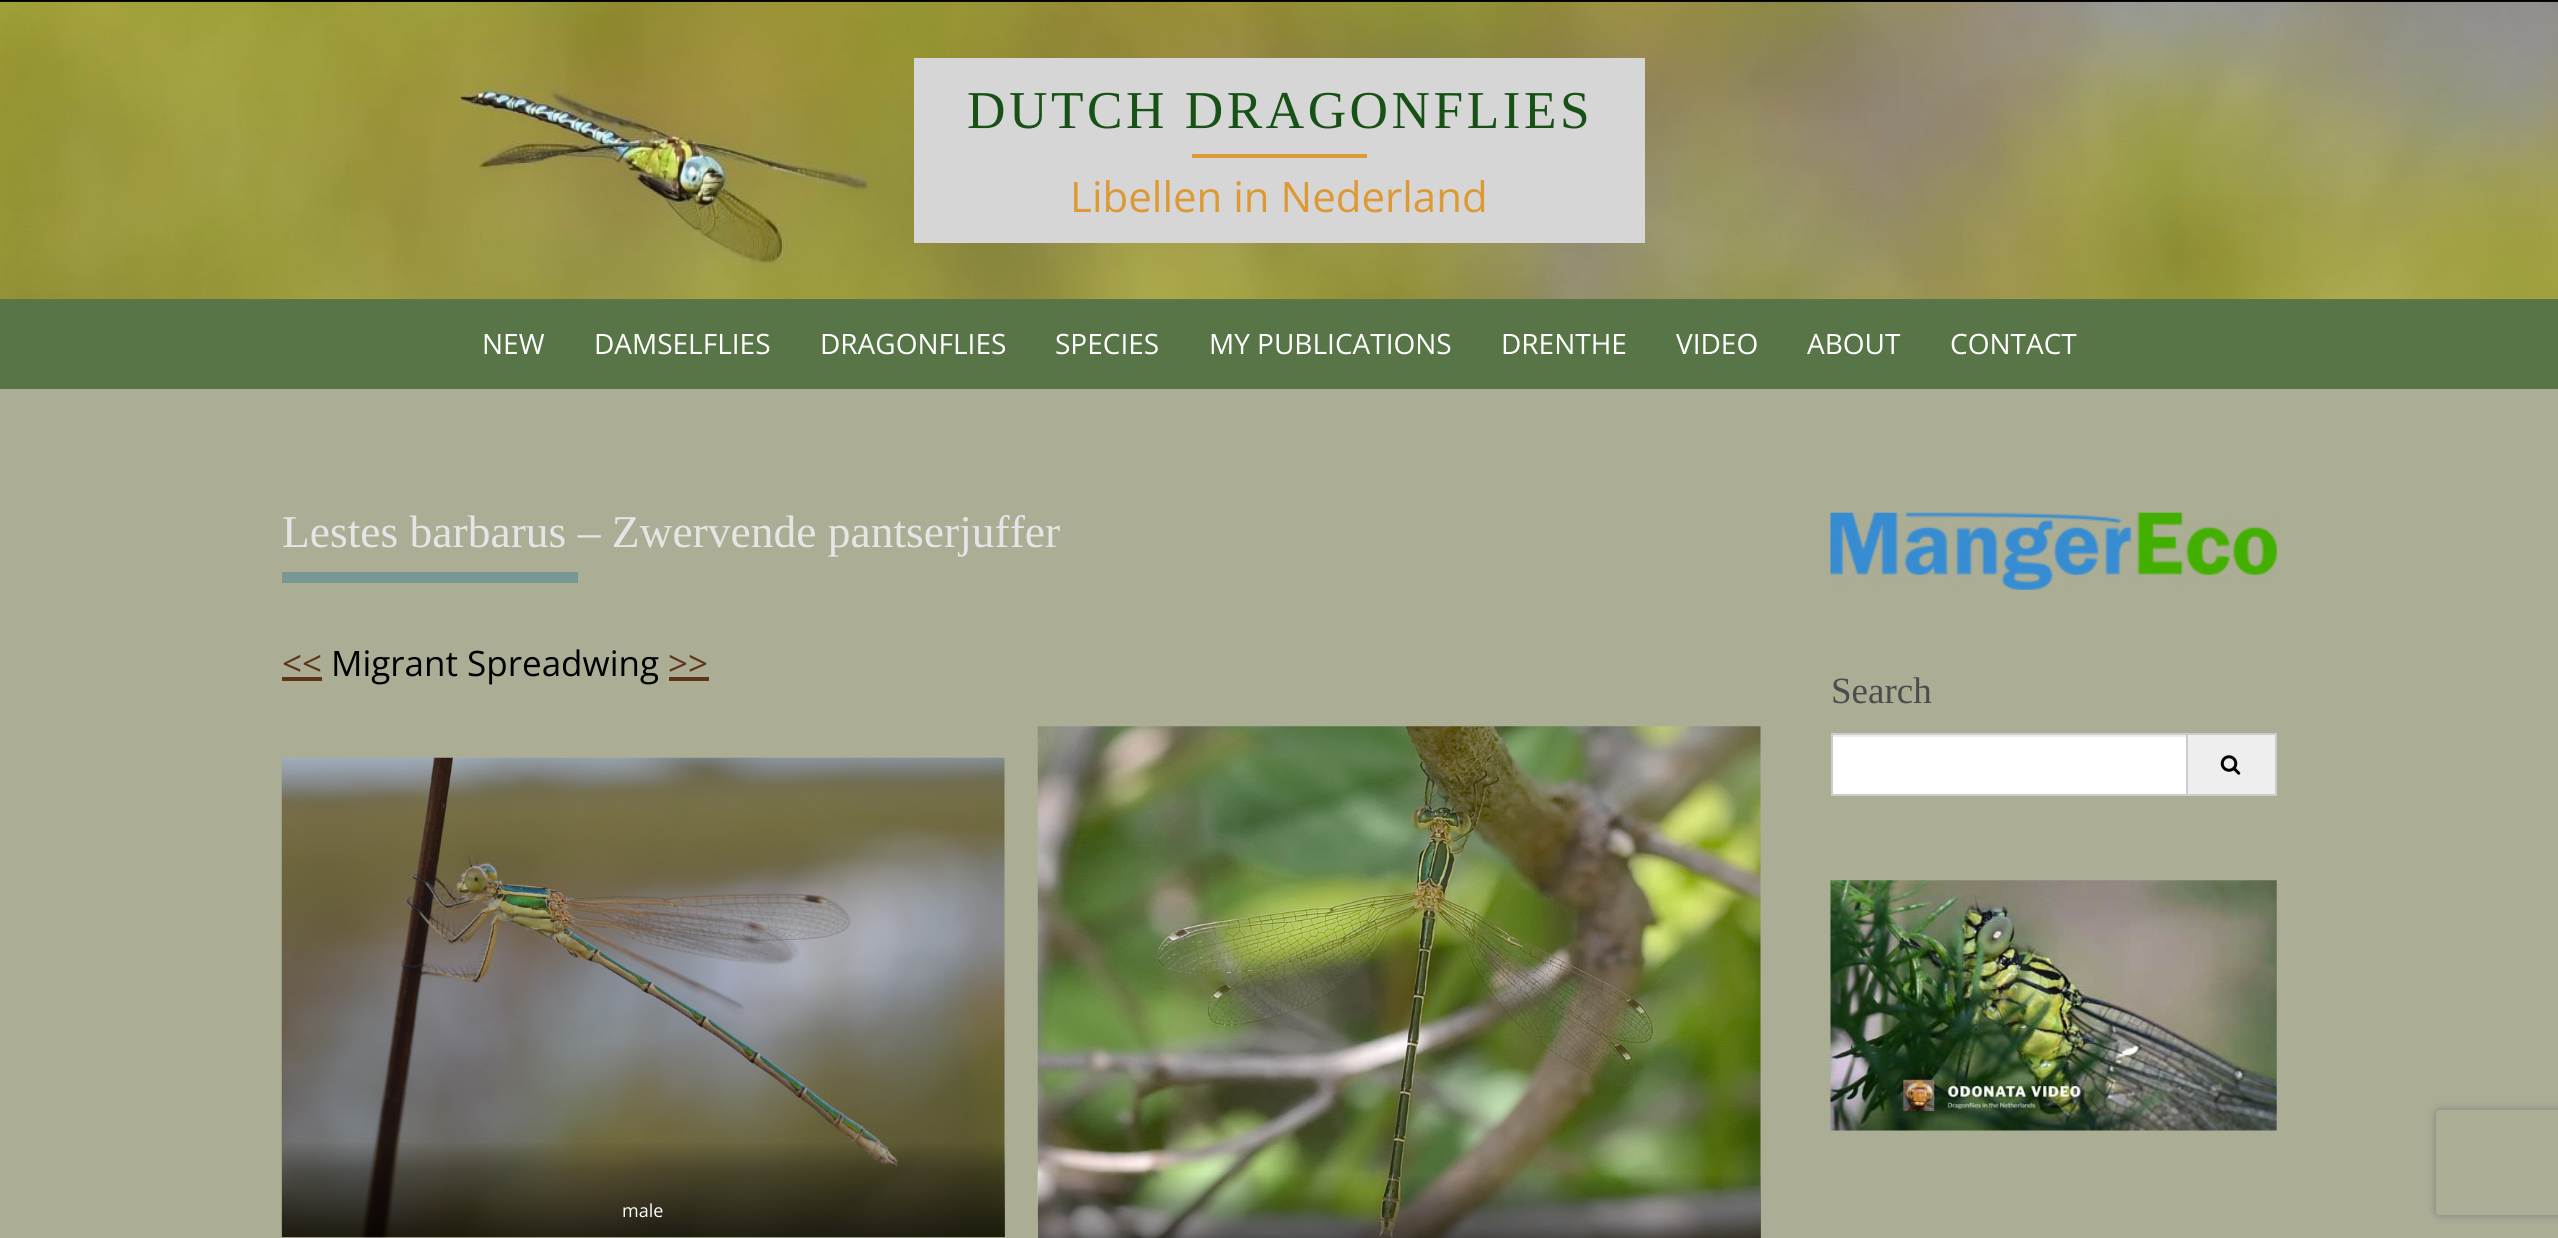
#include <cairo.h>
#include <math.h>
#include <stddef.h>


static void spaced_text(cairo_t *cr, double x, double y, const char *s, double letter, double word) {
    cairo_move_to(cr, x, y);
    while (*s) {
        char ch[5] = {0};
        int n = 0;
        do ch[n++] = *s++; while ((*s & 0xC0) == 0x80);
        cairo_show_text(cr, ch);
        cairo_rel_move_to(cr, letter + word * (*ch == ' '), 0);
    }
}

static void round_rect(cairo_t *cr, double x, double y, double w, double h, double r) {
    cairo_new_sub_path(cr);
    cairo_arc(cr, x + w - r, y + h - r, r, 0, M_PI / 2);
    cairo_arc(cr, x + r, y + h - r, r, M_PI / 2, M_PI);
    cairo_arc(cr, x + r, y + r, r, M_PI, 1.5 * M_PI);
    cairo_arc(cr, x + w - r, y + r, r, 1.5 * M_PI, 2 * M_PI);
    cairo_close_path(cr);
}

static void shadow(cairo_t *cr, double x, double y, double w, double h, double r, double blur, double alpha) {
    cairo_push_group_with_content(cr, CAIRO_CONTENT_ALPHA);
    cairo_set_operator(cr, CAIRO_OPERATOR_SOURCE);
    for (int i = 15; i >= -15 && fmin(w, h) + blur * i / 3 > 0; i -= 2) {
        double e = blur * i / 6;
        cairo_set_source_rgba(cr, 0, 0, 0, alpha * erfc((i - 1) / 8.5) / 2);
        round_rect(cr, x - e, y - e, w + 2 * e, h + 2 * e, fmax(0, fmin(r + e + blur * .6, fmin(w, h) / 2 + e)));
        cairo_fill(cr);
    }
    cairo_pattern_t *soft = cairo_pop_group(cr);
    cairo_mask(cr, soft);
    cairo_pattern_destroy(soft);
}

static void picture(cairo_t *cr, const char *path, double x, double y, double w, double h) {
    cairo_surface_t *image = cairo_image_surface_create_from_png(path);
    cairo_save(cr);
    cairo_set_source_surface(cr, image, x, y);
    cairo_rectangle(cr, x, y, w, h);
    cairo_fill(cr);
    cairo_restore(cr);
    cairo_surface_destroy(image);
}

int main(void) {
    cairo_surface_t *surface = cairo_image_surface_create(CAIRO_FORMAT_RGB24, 2558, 1238);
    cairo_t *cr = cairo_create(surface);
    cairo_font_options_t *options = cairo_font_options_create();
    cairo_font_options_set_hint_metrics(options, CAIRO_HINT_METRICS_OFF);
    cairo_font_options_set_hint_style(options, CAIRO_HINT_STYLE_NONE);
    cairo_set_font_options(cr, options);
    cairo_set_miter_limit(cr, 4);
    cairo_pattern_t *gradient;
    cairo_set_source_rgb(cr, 0, 0, 0);
    cairo_paint(cr);
    cairo_set_source_rgb(cr, 0.341, 0.459, 0.278);
    cairo_rectangle(cr, 0, 299, 2558, 90);
    cairo_fill(cr);
    picture(cr, "img1.png", 0, 1, 2558, 299);
    cairo_set_source_rgb(cr, 0.839, 0.839, 0.839);
    cairo_rectangle(cr, 914, 58, 731, 185);
    cairo_fill(cr);
    cairo_select_font_face(cr, "Liberation Serif", CAIRO_FONT_SLANT_NORMAL, CAIRO_FONT_WEIGHT_NORMAL);
    cairo_set_font_size(cr, 53.25);
    cairo_set_source_rgb(cr, 0.09, 0.318, 0.086);
    spaced_text(cr, 967, 128, "DUTCH DRAGONFLIES", 3.5, 0);
    cairo_set_source_rgb(cr, 0.867, 0.6, 0.2);
    cairo_rectangle(cr, 1192, 154, 175, 4);
    cairo_fill(cr);
    cairo_select_font_face(cr, "Open Sans", CAIRO_FONT_SLANT_NORMAL, CAIRO_FONT_WEIGHT_NORMAL);
    cairo_set_font_size(cr, 42);
    cairo_move_to(cr, 1070, 212);
    cairo_show_text(cr, "Libellen in Nederland");
    cairo_set_font_size(cr, 28);
    cairo_set_source_rgb(cr, 1, 1, 1);
    cairo_move_to(cr, 482, 354);
    cairo_show_text(cr, "NEW");
    cairo_move_to(cr, 594, 354);
    cairo_show_text(cr, "DAMSELFLIES");
    cairo_move_to(cr, 820, 354);
    cairo_show_text(cr, "DRAGONFLIES");
    cairo_move_to(cr, 1055, 354);
    cairo_show_text(cr, "SPECIES");
    cairo_move_to(cr, 1209, 354);
    cairo_show_text(cr, "MY PUBLICATIONS");
    cairo_move_to(cr, 1501, 354);
    cairo_show_text(cr, "DRENTHE");
    cairo_move_to(cr, 1676, 354);
    cairo_show_text(cr, "VIDEO");
    cairo_move_to(cr, 1807, 354);
    cairo_show_text(cr, "ABOUT");
    cairo_move_to(cr, 1950, 354);
    cairo_show_text(cr, "CONTACT");
    cairo_set_source_rgb(cr, 0.671, 0.678, 0.584);
    cairo_rectangle(cr, 0, 389, 2558, 849);
    cairo_fill(cr);
    cairo_select_font_face(cr, "Liberation Serif", CAIRO_FONT_SLANT_NORMAL, CAIRO_FONT_WEIGHT_NORMAL);
    cairo_set_font_size(cr, 45.5);
    cairo_set_source_rgb(cr, 0.898, 0.898, 0.898);
    cairo_move_to(cr, 282, 547);
    cairo_show_text(cr, "Lestes barbarus – Zwervende pantserjuffer");
    cairo_set_source_rgb(cr, 0.471, 0.6, 0.576);
    cairo_rectangle(cr, 282, 572, 296, 11);
    cairo_fill(cr);
    cairo_select_font_face(cr, "Open Sans", CAIRO_FONT_SLANT_NORMAL, CAIRO_FONT_WEIGHT_NORMAL);
    cairo_set_font_size(cr, 35);
    cairo_set_source_rgb(cr, 0.369, 0.212, 0.09);
    cairo_move_to(cr, 282, 676);
    cairo_show_text(cr, "<<");
    cairo_rectangle(cr, 282, 677, 40, 4);
    cairo_fill(cr);
    cairo_set_source_rgb(cr, 0, 0, 0);
    cairo_move_to(cr, 331, 676);
    cairo_show_text(cr, "Migrant Spreadwing");
    cairo_set_source_rgb(cr, 0.369, 0.212, 0.09);
    cairo_move_to(cr, 668, 676);
    cairo_show_text(cr, ">>");
    cairo_rectangle(cr, 669, 677, 40, 4);
    cairo_fill(cr);
    picture(cr, "img2.png", 281, 757, 724, 481);
    gradient = cairo_pattern_create_linear(643, 1237, 643, 1141);
    cairo_pattern_add_color_stop_rgba(gradient, 0, 0, 0, 0, 0.7);
    cairo_pattern_add_color_stop_rgba(gradient, 0.7, 0, 0, 0, 0.3);
    cairo_pattern_add_color_stop_rgba(gradient, 1, 0, 0, 0, 0);
    cairo_set_source(cr, gradient);
    cairo_pattern_destroy(gradient);
    cairo_rectangle(cr, 282, 1143, 723, 94);
    cairo_fill(cr);
    cairo_set_font_size(cr, 18);
    cairo_set_source_rgb(cr, 1, 1, 1);
    cairo_move_to(cr, 622, 1217);
    cairo_show_text(cr, "male");
    picture(cr, "img3.png", 1037, 726, 724, 512);
    gradient = cairo_pattern_create_linear(1399, 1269, 1399, 1173);
    cairo_pattern_add_color_stop_rgba(gradient, 0, 0, 0, 0, 0.7);
    cairo_pattern_add_color_stop_rgba(gradient, 0.7, 0, 0, 0, 0.3);
    cairo_pattern_add_color_stop_rgba(gradient, 1, 0, 0, 0, 0);
    cairo_set_source(cr, gradient);
    cairo_pattern_destroy(gradient);
    cairo_rectangle(cr, 1038, 1175, 723, 63);
    cairo_fill(cr);
    picture(cr, "img4.png", 1830, 512, 447, 78);
    cairo_select_font_face(cr, "Liberation Serif", CAIRO_FONT_SLANT_NORMAL, CAIRO_FONT_WEIGHT_NORMAL);
    cairo_set_font_size(cr, 37);
    cairo_set_source_rgb(cr, 0.298, 0.298, 0.298);
    cairo_move_to(cr, 1831, 703);
    cairo_show_text(cr, "Search");
    cairo_set_source_rgb(cr, 0.933, 0.933, 0.933);
    cairo_rectangle(cr, 2188, 735, 87, 59);
    cairo_fill(cr);
    cairo_rectangle(cr, 2185, 734, 91, 61);
    cairo_set_source_rgb(cr, 0.8, 0.8, 0.8);
    cairo_stroke(cr);
    cairo_set_source_rgb(cr, 1, 1, 1);
    cairo_rectangle(cr, 1833, 737, 353, 57);
    cairo_fill(cr);
    cairo_set_source_rgb(cr, 0.925, 0.925, 0.925);
    cairo_rectangle(cr, 1832, 735, 354, 2);
    cairo_fill(cr);
    cairo_rectangle(cr, 1832, 734, 355, 61);
    cairo_set_source_rgb(cr, 0.8, 0.8, 0.8);
    cairo_stroke(cr);
    picture(cr, "img5.png", 2220, 755, 21, 20);
    picture(cr, "img6.png", 1830, 880, 447, 251);
    cairo_save(cr);
    cairo_set_fill_rule(cr, CAIRO_FILL_RULE_EVEN_ODD);
    cairo_new_path(cr);
    cairo_move_to(cr, 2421, 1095);
    cairo_line_to(cr, 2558, 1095);
    cairo_line_to(cr, 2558, 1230);
    cairo_line_to(cr, 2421, 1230);
    cairo_close_path(cr);
    cairo_move_to(cr, 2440, 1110);
    cairo_line_to(cr, 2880, 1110);
    cairo_curve_to(cr, 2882, 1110, 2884, 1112, 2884, 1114);
    cairo_line_to(cr, 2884, 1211);
    cairo_curve_to(cr, 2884, 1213, 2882, 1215, 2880, 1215);
    cairo_line_to(cr, 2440, 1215);
    cairo_curve_to(cr, 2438, 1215, 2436, 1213, 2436, 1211);
    cairo_line_to(cr, 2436, 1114);
    cairo_curve_to(cr, 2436, 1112, 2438, 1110, 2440, 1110);
    cairo_close_path(cr);
    cairo_clip(cr);
    cairo_set_source_rgb(cr, 0.502, 0.502, 0.502);
    shadow(cr, 2436, 1110, 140, 105, 4, 4.5, 1);
    cairo_restore(cr);
    cairo_surface_write_to_png(surface, "page.png");
    cairo_font_options_destroy(options);
    cairo_destroy(cr);
    cairo_surface_destroy(surface);
    return 0;
}
